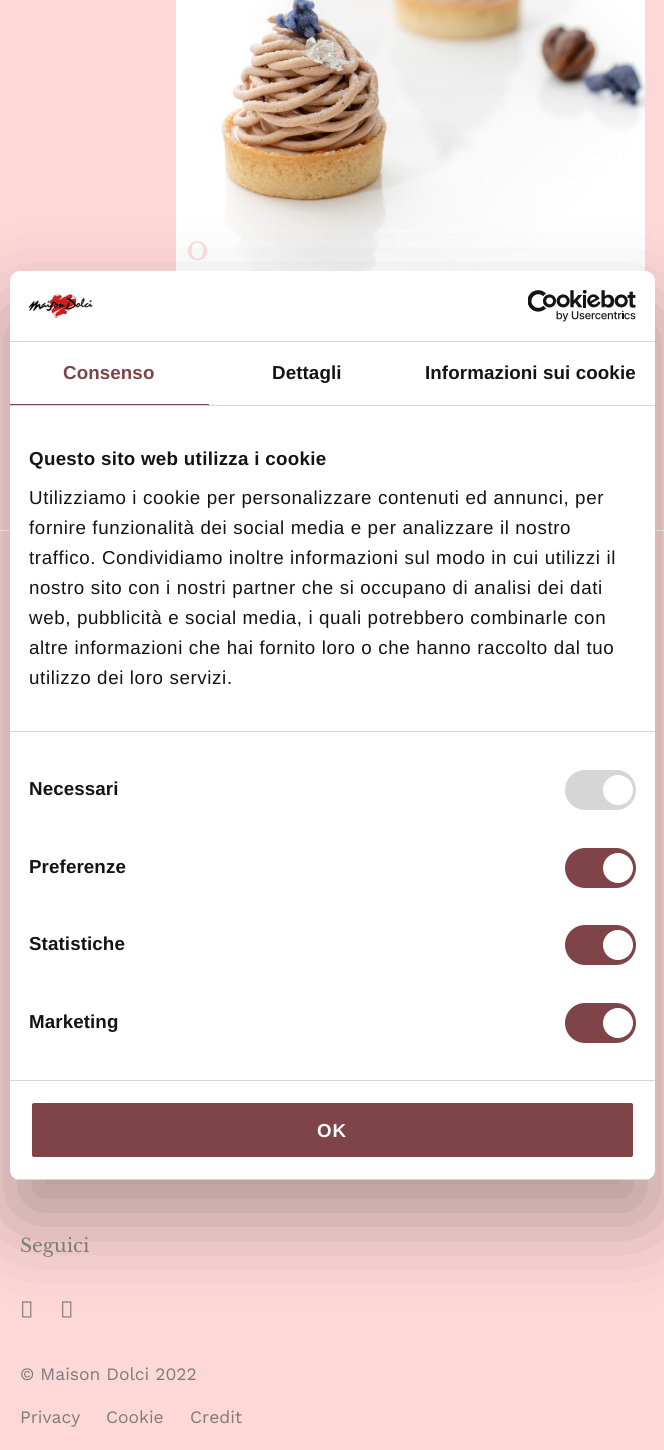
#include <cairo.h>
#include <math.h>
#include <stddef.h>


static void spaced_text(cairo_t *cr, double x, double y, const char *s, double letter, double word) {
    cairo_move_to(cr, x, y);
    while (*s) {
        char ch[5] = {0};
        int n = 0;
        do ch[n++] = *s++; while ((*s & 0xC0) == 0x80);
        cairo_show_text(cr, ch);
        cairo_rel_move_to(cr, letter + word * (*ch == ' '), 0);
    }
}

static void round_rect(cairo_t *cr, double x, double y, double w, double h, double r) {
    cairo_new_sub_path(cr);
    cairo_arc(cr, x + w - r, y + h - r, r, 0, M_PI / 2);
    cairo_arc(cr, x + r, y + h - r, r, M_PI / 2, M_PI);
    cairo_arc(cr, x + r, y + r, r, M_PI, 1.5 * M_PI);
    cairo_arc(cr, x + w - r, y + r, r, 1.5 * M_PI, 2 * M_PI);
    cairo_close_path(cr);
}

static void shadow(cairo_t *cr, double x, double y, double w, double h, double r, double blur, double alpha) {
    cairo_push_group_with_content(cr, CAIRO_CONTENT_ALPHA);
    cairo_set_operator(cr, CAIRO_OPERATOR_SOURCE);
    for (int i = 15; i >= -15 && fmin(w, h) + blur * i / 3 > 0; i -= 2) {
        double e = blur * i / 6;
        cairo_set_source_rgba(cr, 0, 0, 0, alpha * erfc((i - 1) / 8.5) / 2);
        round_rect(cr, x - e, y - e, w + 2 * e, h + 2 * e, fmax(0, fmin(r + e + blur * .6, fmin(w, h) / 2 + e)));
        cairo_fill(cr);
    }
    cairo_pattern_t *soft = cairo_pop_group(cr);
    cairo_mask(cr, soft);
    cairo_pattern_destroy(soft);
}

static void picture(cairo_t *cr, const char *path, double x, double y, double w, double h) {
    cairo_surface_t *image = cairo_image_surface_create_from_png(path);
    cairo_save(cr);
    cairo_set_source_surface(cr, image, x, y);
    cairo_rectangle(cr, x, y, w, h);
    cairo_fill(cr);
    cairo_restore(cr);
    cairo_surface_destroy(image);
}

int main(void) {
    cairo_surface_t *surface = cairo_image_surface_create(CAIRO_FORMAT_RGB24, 664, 1450);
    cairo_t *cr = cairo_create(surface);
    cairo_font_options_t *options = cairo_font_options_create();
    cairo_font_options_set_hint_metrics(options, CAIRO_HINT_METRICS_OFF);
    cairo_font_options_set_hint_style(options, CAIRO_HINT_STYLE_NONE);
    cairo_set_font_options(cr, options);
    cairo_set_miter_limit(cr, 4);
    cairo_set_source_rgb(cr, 0.996, 0.843, 0.843);
    cairo_paint(cr);
    picture(cr, "img1.png", 176, 0, 469, 271);
    cairo_select_font_face(cr, "Libre Baskerville", CAIRO_FONT_SLANT_NORMAL, CAIRO_FONT_WEIGHT_NORMAL);
    cairo_set_font_size(cr, 35);
    cairo_set_source_rgb(cr, 0.996, 0.871, 0.871);
    cairo_move_to(cr, 186, 260);
    cairo_show_text(cr, "o");
    cairo_set_source_rgb(cr, 1, 1, 1);
    cairo_rectangle(cr, 0, 530, 664, 1);
    cairo_fill(cr);
    picture(cr, "img4.png", 22, 1301, 10, 17);
    picture(cr, "img4.png", 62, 1301, 10, 17);
    cairo_set_source_rgb(cr, 0, 0, 0);
    shadow(cr, 10, 311, 645, 909, 10, 42.5, 0.3);
    cairo_set_source_rgb(cr, 1, 1, 1);
    round_rect(cr, 10, 271, 645, 909, 10);
    cairo_fill(cr);
    cairo_set_source_rgb(cr, 0.839, 0.839, 0.839);
    cairo_rectangle(cr, 10, 341, 645, 1);
    cairo_fill(cr);
    picture(cr, "img2.png", 28, 294, 65, 25);
    picture(cr, "img3.png", 528, 290, 108, 32);
    cairo_rectangle(cr, 10, 405, 645, 1);
    cairo_fill(cr);
    cairo_set_source_rgb(cr, 0.494, 0.267, 0.278);
    cairo_rectangle(cr, 10, 404, 199, 1);
    cairo_fill(cr);
    cairo_select_font_face(cr, "Liberation Sans", CAIRO_FONT_SLANT_NORMAL, CAIRO_FONT_WEIGHT_BOLD);
    cairo_set_font_size(cr, 18.75);
    spaced_text(cr, 63, 379, "Consenso", 0.1, 0);
    cairo_set_source_rgb(cr, 0.078, 0.078, 0.078);
    spaced_text(cr, 272, 379, "Dettagli", 0.1, 0);
    spaced_text(cr, 425, 379, "Informazioni sui cookie", 0.1, 0);
    cairo_set_source_rgb(cr, 0.839, 0.839, 0.839);
    cairo_rectangle(cr, 10, 731, 645, 1);
    cairo_fill(cr);
    cairo_set_source_rgb(cr, 0.078, 0.078, 0.078);
    spaced_text(cr, 29, 465, "Questo sito web utilizza i cookie", 0.3, 0);
    cairo_select_font_face(cr, "Liberation Sans", CAIRO_FONT_SLANT_NORMAL, CAIRO_FONT_WEIGHT_NORMAL);
    spaced_text(cr, 29, 504, "Utilizziamo i cookie per personalizzare contenuti ed annunci, per", 0.62, 0);
    spaced_text(cr, 29, 534, "fornire funzionalità dei social media e per analizzare il nostro", 0.62, 0);
    spaced_text(cr, 29, 564, "traffico. Condividiamo inoltre informazioni sul modo in cui utilizzi il", 0.62, 0);
    spaced_text(cr, 29, 594, "nostro sito con i nostri partner che si occupano di analisi dei dati", 0.62, 0);
    spaced_text(cr, 29, 624, "web, pubblicità e social media, i quali potrebbero combinarle con", 0.62, 0);
    spaced_text(cr, 29, 654, "altre informazioni che hai fornito loro o che hanno raccolto dal tuo", 0.62, 0);
    spaced_text(cr, 29, 684, "utilizzo dei loro servizi.", 0.62, 0);
    cairo_set_source_rgb(cr, 0.839, 0.839, 0.839);
    cairo_rectangle(cr, 10, 1080, 645, 1);
    cairo_fill(cr);
    cairo_select_font_face(cr, "Liberation Sans", CAIRO_FONT_SLANT_NORMAL, CAIRO_FONT_WEIGHT_BOLD);
    cairo_set_source_rgb(cr, 0.078, 0.078, 0.078);
    spaced_text(cr, 29, 795, "Necessari", 0.1, 0);
    cairo_set_source_rgb(cr, 0.839, 0.839, 0.839);
    round_rect(cr, 565, 770, 71, 40, 20);
    cairo_fill(cr);
    cairo_set_source_rgb(cr, 1, 1, 1);
    cairo_arc(cr, 618, 790, 15, 0, 2 * M_PI);
    cairo_fill(cr);
    cairo_set_source_rgb(cr, 0.078, 0.078, 0.078);
    spaced_text(cr, 29, 873, "Preferenze", 0.1, 0);
    cairo_set_source_rgb(cr, 0.494, 0.267, 0.278);
    round_rect(cr, 565, 848, 71, 40, 20);
    cairo_fill(cr);
    cairo_set_source_rgb(cr, 1, 1, 1);
    cairo_arc(cr, 618, 868, 15, 0, 2 * M_PI);
    cairo_fill(cr);
    cairo_set_source_rgb(cr, 0.078, 0.078, 0.078);
    spaced_text(cr, 29, 950, "Statistiche", 0.1, 0);
    cairo_set_source_rgb(cr, 0.494, 0.267, 0.278);
    round_rect(cr, 565, 925, 71, 40, 20);
    cairo_fill(cr);
    cairo_set_source_rgb(cr, 1, 1, 1);
    cairo_arc(cr, 618, 945, 15, 0, 2 * M_PI);
    cairo_fill(cr);
    cairo_set_source_rgb(cr, 0.078, 0.078, 0.078);
    spaced_text(cr, 29, 1028, "Marketing", 0.1, 0);
    cairo_set_source_rgb(cr, 0.494, 0.267, 0.278);
    round_rect(cr, 565, 1003, 71, 40, 20);
    cairo_fill(cr);
    cairo_set_source_rgb(cr, 1, 1, 1);
    cairo_arc(cr, 618, 1023, 15, 0, 2 * M_PI);
    cairo_fill(cr);
    cairo_save(cr);
    round_rect(cr, 10, 271, 645, 909, 10);
    cairo_clip(cr);
    cairo_set_source_rgb(cr, 0.839, 0.839, 0.839);
    cairo_rectangle(cr, 10, 1179, 645, 1);
    cairo_fill(cr);
    cairo_restore(cr);
    cairo_set_source_rgb(cr, 0.494, 0.267, 0.278);
    round_rect(cr, 30.5, 1101.5, 604, 57, 3.5);
    cairo_fill_preserve(cr);
    cairo_set_source_rgb(cr, 1, 1, 1);
    cairo_set_line_width(cr, 3);
    cairo_stroke(cr);
    spaced_text(cr, 317, 1137, "OK", 1, 0);
    cairo_select_font_face(cr, "Libre Baskerville", CAIRO_FONT_SLANT_NORMAL, CAIRO_FONT_WEIGHT_NORMAL);
    cairo_set_source_rgb(cr, 0.486, 0.486, 0.475);
    cairo_move_to(cr, 20, 1252);
    cairo_show_text(cr, "Seguici");
    cairo_select_font_face(cr, "Work Sans", CAIRO_FONT_SLANT_NORMAL, CAIRO_FONT_WEIGHT_NORMAL);
    cairo_set_font_size(cr, 17.5);
    cairo_move_to(cr, 20, 1380);
    cairo_show_text(cr, "© Maison Dolci 2022");
    cairo_move_to(cr, 20, 1423);
    cairo_show_text(cr, "Privacy");
    cairo_move_to(cr, 106, 1423);
    cairo_show_text(cr, "Cookie");
    cairo_move_to(cr, 190, 1423);
    cairo_show_text(cr, "Credit");
    cairo_surface_write_to_png(surface, "page.png");
    cairo_font_options_destroy(options);
    cairo_destroy(cr);
    cairo_surface_destroy(surface);
    return 0;
}
